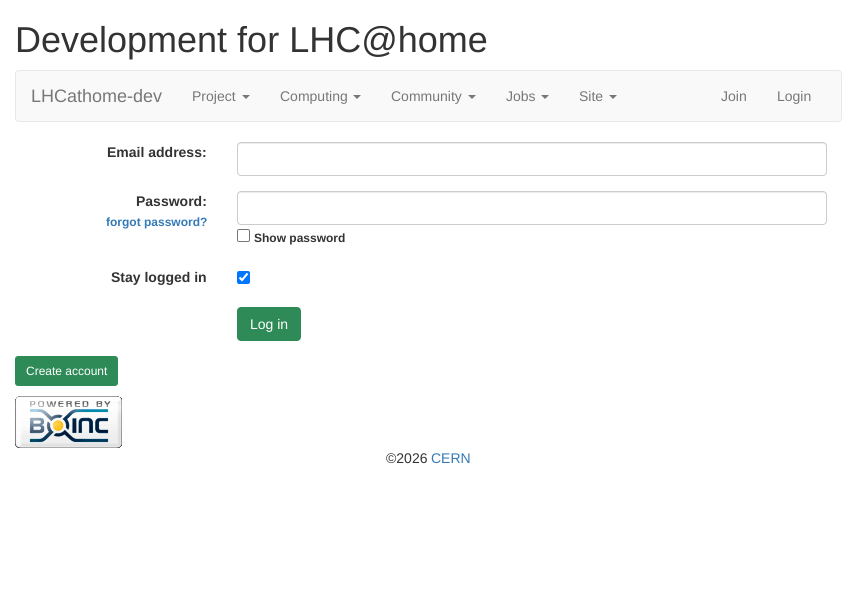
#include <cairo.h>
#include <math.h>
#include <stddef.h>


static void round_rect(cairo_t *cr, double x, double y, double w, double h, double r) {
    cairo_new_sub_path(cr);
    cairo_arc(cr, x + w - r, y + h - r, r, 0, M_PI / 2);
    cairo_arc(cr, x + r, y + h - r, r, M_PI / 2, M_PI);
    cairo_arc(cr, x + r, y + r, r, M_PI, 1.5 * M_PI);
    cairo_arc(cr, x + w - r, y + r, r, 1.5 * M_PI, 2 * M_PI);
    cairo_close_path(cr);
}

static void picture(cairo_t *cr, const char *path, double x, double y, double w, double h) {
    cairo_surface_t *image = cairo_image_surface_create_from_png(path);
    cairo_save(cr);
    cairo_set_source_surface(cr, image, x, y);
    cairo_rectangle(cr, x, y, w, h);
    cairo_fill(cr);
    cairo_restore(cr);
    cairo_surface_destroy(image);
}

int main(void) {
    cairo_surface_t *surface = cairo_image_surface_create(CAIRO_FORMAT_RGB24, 857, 616);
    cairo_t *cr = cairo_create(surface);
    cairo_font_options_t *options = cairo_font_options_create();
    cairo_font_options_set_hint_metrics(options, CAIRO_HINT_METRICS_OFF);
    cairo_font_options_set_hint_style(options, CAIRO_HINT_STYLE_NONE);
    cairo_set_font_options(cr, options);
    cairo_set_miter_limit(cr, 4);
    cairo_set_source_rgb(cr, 1, 1, 1);
    cairo_paint(cr);
    cairo_select_font_face(cr, "Liberation Sans", CAIRO_FONT_SLANT_NORMAL, CAIRO_FONT_WEIGHT_NORMAL);
    cairo_set_font_size(cr, 36);
    cairo_set_source_rgb(cr, 0.2, 0.2, 0.2);
    cairo_move_to(cr, 15, 52);
    cairo_show_text(cr, "Development for LHC@home");
    cairo_set_source_rgb(cr, 0.973, 0.973, 0.973);
    round_rect(cr, 15.5, 70.5, 826, 51, 3.5);
    cairo_fill_preserve(cr);
    cairo_set_source_rgb(cr, 0.906, 0.906, 0.906);
    cairo_set_line_width(cr, 1);
    cairo_stroke(cr);
    cairo_set_font_size(cr, 18);
    cairo_set_source_rgb(cr, 0.467, 0.467, 0.467);
    cairo_move_to(cr, 31, 102);
    cairo_show_text(cr, "LHCathome-dev");
    cairo_set_font_size(cr, 14);
    cairo_move_to(cr, 192, 101);
    cairo_show_text(cr, "Project");
    cairo_new_path(cr);
    cairo_move_to(cr, 242, 95);
    cairo_line_to(cr, 250, 95);
    cairo_line_to(cr, 246, 99);
    cairo_close_path(cr);
    cairo_fill(cr);
    cairo_move_to(cr, 280, 101);
    cairo_show_text(cr, "Computing");
    cairo_new_path(cr);
    cairo_move_to(cr, 353, 95);
    cairo_line_to(cr, 361, 95);
    cairo_line_to(cr, 357, 99);
    cairo_close_path(cr);
    cairo_fill(cr);
    cairo_move_to(cr, 391, 101);
    cairo_show_text(cr, "Community");
    cairo_new_path(cr);
    cairo_move_to(cr, 468, 95);
    cairo_line_to(cr, 476, 95);
    cairo_line_to(cr, 472, 99);
    cairo_close_path(cr);
    cairo_fill(cr);
    cairo_move_to(cr, 506, 101);
    cairo_show_text(cr, "Jobs");
    cairo_new_path(cr);
    cairo_move_to(cr, 541, 95);
    cairo_line_to(cr, 549, 95);
    cairo_line_to(cr, 545, 99);
    cairo_close_path(cr);
    cairo_fill(cr);
    cairo_move_to(cr, 579, 101);
    cairo_show_text(cr, "Site");
    cairo_new_path(cr);
    cairo_move_to(cr, 609, 95);
    cairo_line_to(cr, 617, 95);
    cairo_line_to(cr, 613, 99);
    cairo_close_path(cr);
    cairo_fill(cr);
    cairo_move_to(cr, 721, 101);
    cairo_show_text(cr, "Join");
    cairo_move_to(cr, 777, 101);
    cairo_show_text(cr, "Login");
    cairo_select_font_face(cr, "Liberation Sans", CAIRO_FONT_SLANT_NORMAL, CAIRO_FONT_WEIGHT_BOLD);
    cairo_set_source_rgb(cr, 0.2, 0.2, 0.2);
    cairo_move_to(cr, 107, 157);
    cairo_show_text(cr, "Email address:");
    cairo_set_source_rgb(cr, 0.925, 0.925, 0.925);
    cairo_new_path(cr);
    cairo_move_to(cr, 241, 144);
    cairo_line_to(cr, 823, 144);
    cairo_curve_to(cr, 825, 144, 826, 145, 826, 147);
    cairo_line_to(cr, 826, 146);
    cairo_curve_to(cr, 826, 144, 825, 143, 823, 143);
    cairo_line_to(cr, 241, 143);
    cairo_curve_to(cr, 239, 143, 238, 144, 238, 146);
    cairo_line_to(cr, 238, 147);
    cairo_curve_to(cr, 238, 145, 239, 144, 241, 144);
    cairo_close_path(cr);
    cairo_fill(cr);
    round_rect(cr, 237.5, 142.5, 589, 33, 3.5);
    cairo_set_source_rgb(cr, 0.8, 0.8, 0.8);
    cairo_stroke(cr);
    cairo_set_source_rgb(cr, 0.2, 0.2, 0.2);
    cairo_move_to(cr, 136, 206);
    cairo_show_text(cr, "Password:");
    cairo_set_font_size(cr, 12);
    cairo_set_source_rgb(cr, 0.2, 0.478, 0.718);
    cairo_move_to(cr, 106, 226);
    cairo_show_text(cr, "forgot password?");
    cairo_set_source_rgb(cr, 0.925, 0.925, 0.925);
    cairo_new_path(cr);
    cairo_move_to(cr, 241, 193);
    cairo_line_to(cr, 823, 193);
    cairo_curve_to(cr, 825, 193, 826, 194, 826, 196);
    cairo_line_to(cr, 826, 195);
    cairo_curve_to(cr, 826, 193, 825, 192, 823, 192);
    cairo_line_to(cr, 241, 192);
    cairo_curve_to(cr, 239, 192, 238, 193, 238, 195);
    cairo_line_to(cr, 238, 196);
    cairo_curve_to(cr, 238, 194, 239, 193, 241, 193);
    cairo_close_path(cr);
    cairo_fill(cr);
    round_rect(cr, 237.5, 191.5, 589, 33, 3.5);
    cairo_set_source_rgb(cr, 0.8, 0.8, 0.8);
    cairo_stroke(cr);
    round_rect(cr, 237.5, 229.5, 12, 12, 1.5);
    cairo_set_source_rgb(cr, 0.463, 0.463, 0.463);
    cairo_stroke(cr);
    cairo_set_source_rgb(cr, 0.2, 0.2, 0.2);
    cairo_move_to(cr, 254, 242);
    cairo_show_text(cr, "Show password");
    cairo_set_font_size(cr, 14);
    cairo_move_to(cr, 111, 282);
    cairo_show_text(cr, "Stay logged in");
    cairo_set_source_rgb(cr, 0, 0.459, 1);
    round_rect(cr, 237, 271, 13, 13, 2);
    cairo_fill(cr);
    cairo_new_path(cr);
    cairo_move_to(cr, 239.5, 277.5);
    cairo_line_to(cr, 242, 280);
    cairo_line_to(cr, 247.5, 273.5);
    cairo_set_source_rgb(cr, 1, 1, 1);
    cairo_set_line_width(cr, 2.1);
    cairo_stroke(cr);
    cairo_set_source_rgb(cr, 0.18, 0.545, 0.341);
    round_rect(cr, 237, 307, 64, 34, 4);
    cairo_fill(cr);
    cairo_select_font_face(cr, "Liberation Sans", CAIRO_FONT_SLANT_NORMAL, CAIRO_FONT_WEIGHT_NORMAL);
    cairo_set_source_rgb(cr, 1, 1, 1);
    cairo_move_to(cr, 250, 329);
    cairo_show_text(cr, "Log in");
    cairo_set_source_rgb(cr, 0.18, 0.545, 0.341);
    round_rect(cr, 15, 356, 103, 30, 3);
    cairo_fill(cr);
    cairo_set_font_size(cr, 12);
    cairo_set_source_rgb(cr, 1, 1, 1);
    cairo_move_to(cr, 26, 375);
    cairo_show_text(cr, "Create account");
    picture(cr, "img1.png", 15, 396, 107, 52);
    cairo_set_font_size(cr, 14);
    cairo_set_source_rgb(cr, 0.2, 0.2, 0.2);
    cairo_move_to(cr, 386, 463);
    cairo_show_text(cr, "©2026");
    cairo_set_source_rgb(cr, 0.2, 0.478, 0.718);
    cairo_move_to(cr, 431, 463);
    cairo_show_text(cr, "CERN");
    cairo_surface_write_to_png(surface, "page.png");
    cairo_font_options_destroy(options);
    cairo_destroy(cr);
    cairo_surface_destroy(surface);
    return 0;
}
